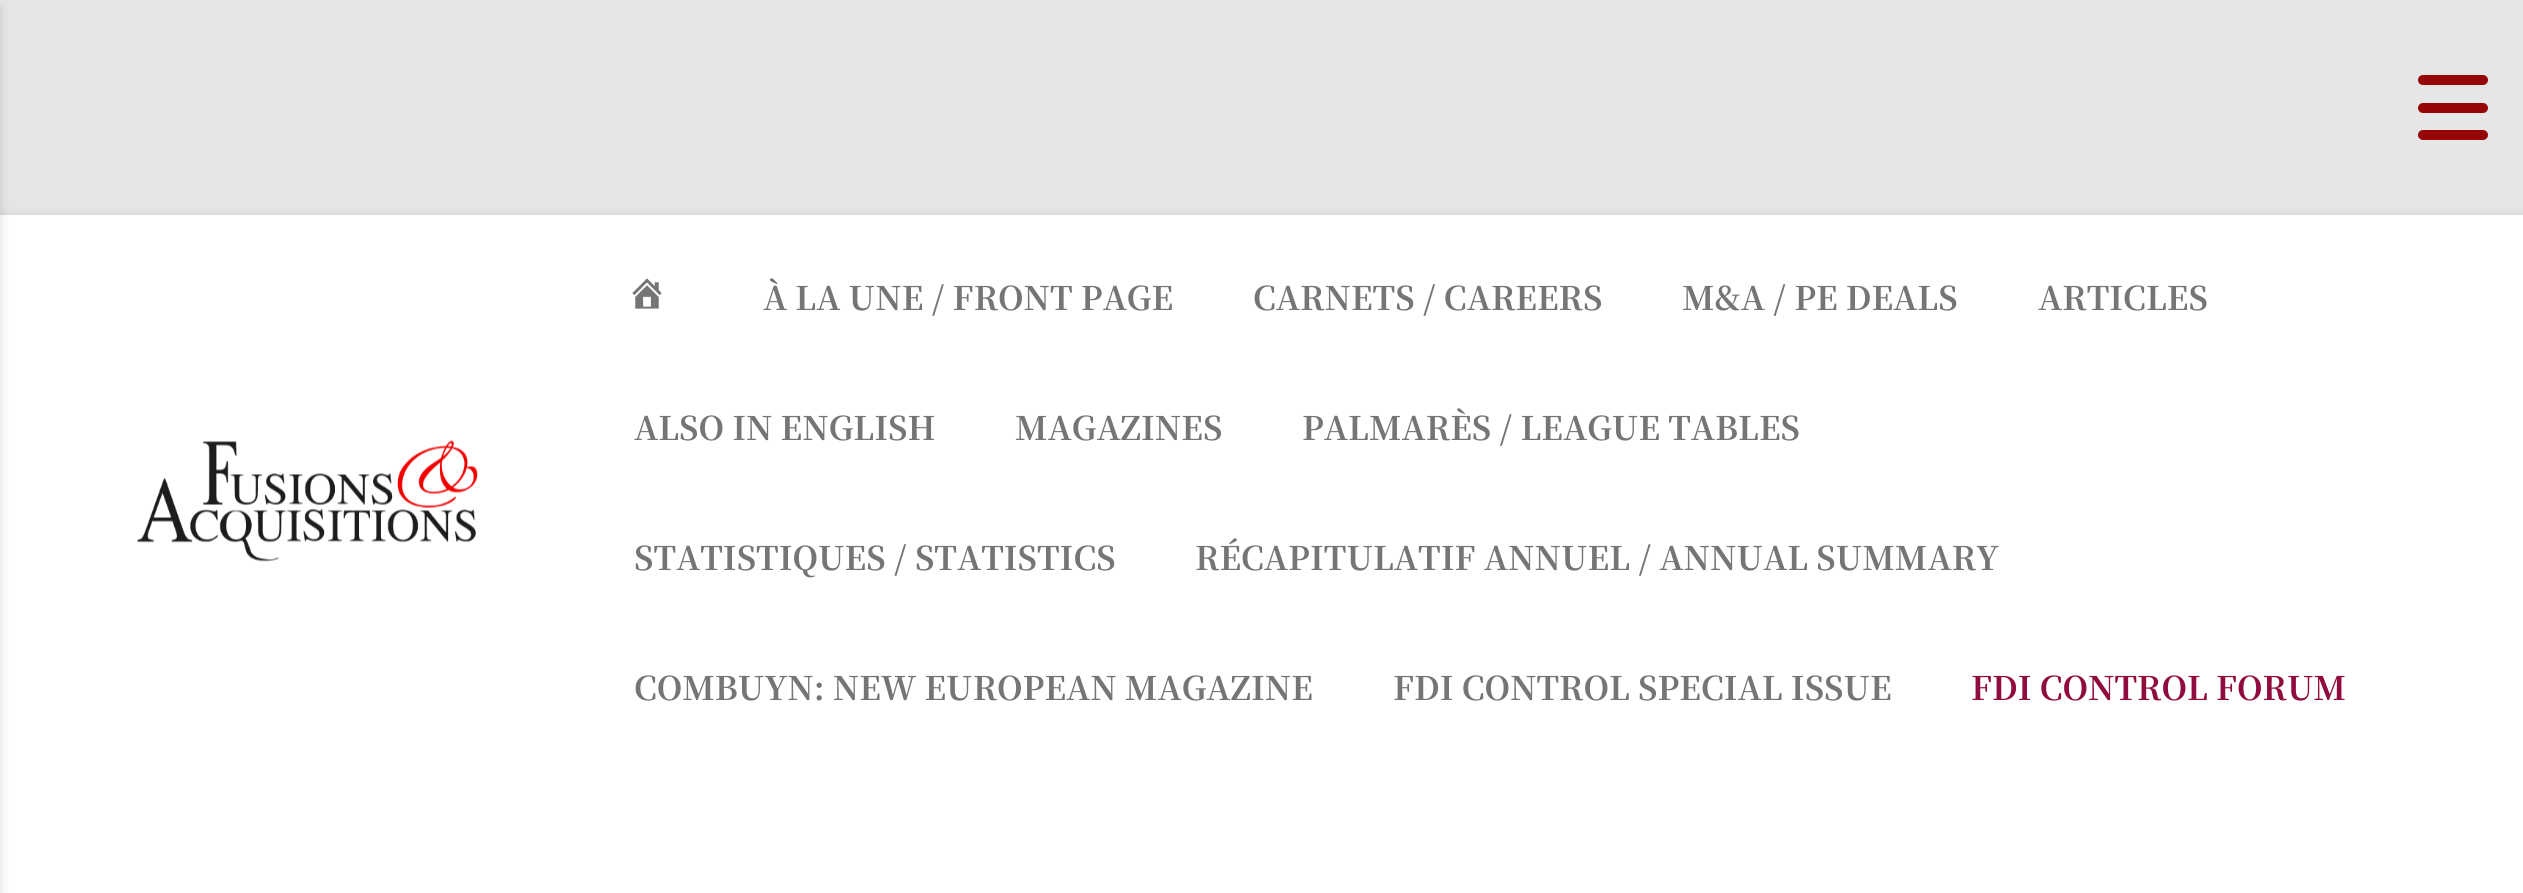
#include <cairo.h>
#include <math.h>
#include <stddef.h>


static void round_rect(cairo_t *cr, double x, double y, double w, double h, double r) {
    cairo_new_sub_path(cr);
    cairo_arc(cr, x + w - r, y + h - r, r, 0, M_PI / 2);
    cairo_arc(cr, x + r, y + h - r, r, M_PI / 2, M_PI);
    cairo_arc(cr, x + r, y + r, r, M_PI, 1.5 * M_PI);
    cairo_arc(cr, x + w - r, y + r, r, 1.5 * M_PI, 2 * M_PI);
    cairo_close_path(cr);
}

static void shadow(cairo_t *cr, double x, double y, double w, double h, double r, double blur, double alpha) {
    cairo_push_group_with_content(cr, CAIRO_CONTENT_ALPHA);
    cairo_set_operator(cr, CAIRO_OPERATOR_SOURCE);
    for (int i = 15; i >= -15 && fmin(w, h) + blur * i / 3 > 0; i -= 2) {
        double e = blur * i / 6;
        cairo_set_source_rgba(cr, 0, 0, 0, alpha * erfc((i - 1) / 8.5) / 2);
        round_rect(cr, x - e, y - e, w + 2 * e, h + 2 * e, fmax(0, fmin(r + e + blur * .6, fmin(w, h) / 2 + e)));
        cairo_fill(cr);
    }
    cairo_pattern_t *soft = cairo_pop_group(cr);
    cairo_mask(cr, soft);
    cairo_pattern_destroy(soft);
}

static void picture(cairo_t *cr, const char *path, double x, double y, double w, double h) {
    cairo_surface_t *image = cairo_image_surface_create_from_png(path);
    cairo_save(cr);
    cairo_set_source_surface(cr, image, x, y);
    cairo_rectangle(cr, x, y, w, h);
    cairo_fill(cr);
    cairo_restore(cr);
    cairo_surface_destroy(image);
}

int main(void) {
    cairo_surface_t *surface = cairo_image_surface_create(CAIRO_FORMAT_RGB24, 2523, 893);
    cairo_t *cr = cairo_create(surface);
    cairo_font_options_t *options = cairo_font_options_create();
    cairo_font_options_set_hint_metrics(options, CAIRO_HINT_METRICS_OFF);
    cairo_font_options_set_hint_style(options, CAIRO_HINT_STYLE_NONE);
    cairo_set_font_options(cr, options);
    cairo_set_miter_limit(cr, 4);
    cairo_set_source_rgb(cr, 0.902, 0.902, 0.902);
    cairo_paint(cr);
    cairo_set_source_rgb(cr, 0.392, 0.392, 0.392);
    shadow(cr, 0, 220, 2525, 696, 0, 7.5, 0.3);
    cairo_set_source_rgb(cr, 1, 1, 1);
    cairo_rectangle(cr, 0, 215, 2523, 678);
    cairo_fill(cr);
    cairo_set_source_rgb(cr, 0, 0, 0);
    shadow(cr, -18, 8, 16, 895, 0, 6, 0.2);
    cairo_set_source_rgb(cr, 0.592, 0.024, 0.027);
    round_rect(cr, 2418, 75, 70, 10, 5);
    cairo_fill(cr);
    round_rect(cr, 2418, 103, 70, 10, 5);
    cairo_fill(cr);
    round_rect(cr, 2418, 130, 70, 10, 5);
    cairo_fill(cr);
    picture(cr, "img1.png", 137, 440, 341, 122);
    picture(cr, "img2.png", 632, 278, 30, 31);
    cairo_select_font_face(cr, "Noto Serif SC", CAIRO_FONT_SLANT_NORMAL, CAIRO_FONT_WEIGHT_BOLD);
    cairo_set_font_size(cr, 32.5);
    cairo_set_source_rgb(cr, 0.459, 0.459, 0.459);
    cairo_move_to(cr, 763, 310);
    cairo_show_text(cr, "À LA UNE / FRONT PAGE");
    cairo_move_to(cr, 1253, 310);
    cairo_show_text(cr, "CARNETS / CAREERS");
    cairo_move_to(cr, 1682, 310);
    cairo_show_text(cr, "M&A / PE DEALS");
    cairo_move_to(cr, 2038, 310);
    cairo_show_text(cr, "ARTICLES");
    cairo_move_to(cr, 634, 440);
    cairo_show_text(cr, "ALSO IN ENGLISH");
    cairo_move_to(cr, 1015, 440);
    cairo_show_text(cr, "MAGAZINES");
    cairo_move_to(cr, 1302, 440);
    cairo_show_text(cr, "PALMARÈS / LEAGUE TABLES");
    cairo_move_to(cr, 634, 570);
    cairo_show_text(cr, "STATISTIQUES / STATISTICS");
    cairo_move_to(cr, 1195, 570);
    cairo_show_text(cr, "RÉCAPITULATIF ANNUEL / ANNUAL SUMMARY");
    cairo_move_to(cr, 634, 700);
    cairo_show_text(cr, "COMBUYN: NEW EUROPEAN MAGAZINE");
    cairo_move_to(cr, 1393, 700);
    cairo_show_text(cr, "FDI CONTROL SPECIAL ISSUE");
    cairo_set_source_rgb(cr, 0.565, 0.047, 0.247);
    cairo_move_to(cr, 1971, 700);
    cairo_show_text(cr, "FDI CONTROL FORUM");
    cairo_surface_write_to_png(surface, "page.png");
    cairo_font_options_destroy(options);
    cairo_destroy(cr);
    cairo_surface_destroy(surface);
    return 0;
}
